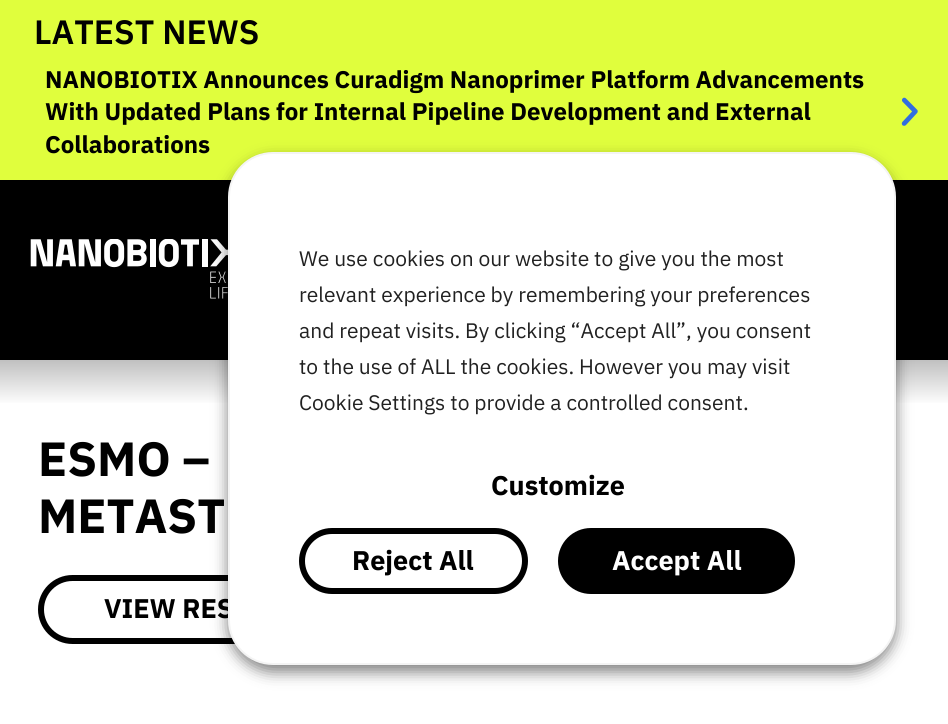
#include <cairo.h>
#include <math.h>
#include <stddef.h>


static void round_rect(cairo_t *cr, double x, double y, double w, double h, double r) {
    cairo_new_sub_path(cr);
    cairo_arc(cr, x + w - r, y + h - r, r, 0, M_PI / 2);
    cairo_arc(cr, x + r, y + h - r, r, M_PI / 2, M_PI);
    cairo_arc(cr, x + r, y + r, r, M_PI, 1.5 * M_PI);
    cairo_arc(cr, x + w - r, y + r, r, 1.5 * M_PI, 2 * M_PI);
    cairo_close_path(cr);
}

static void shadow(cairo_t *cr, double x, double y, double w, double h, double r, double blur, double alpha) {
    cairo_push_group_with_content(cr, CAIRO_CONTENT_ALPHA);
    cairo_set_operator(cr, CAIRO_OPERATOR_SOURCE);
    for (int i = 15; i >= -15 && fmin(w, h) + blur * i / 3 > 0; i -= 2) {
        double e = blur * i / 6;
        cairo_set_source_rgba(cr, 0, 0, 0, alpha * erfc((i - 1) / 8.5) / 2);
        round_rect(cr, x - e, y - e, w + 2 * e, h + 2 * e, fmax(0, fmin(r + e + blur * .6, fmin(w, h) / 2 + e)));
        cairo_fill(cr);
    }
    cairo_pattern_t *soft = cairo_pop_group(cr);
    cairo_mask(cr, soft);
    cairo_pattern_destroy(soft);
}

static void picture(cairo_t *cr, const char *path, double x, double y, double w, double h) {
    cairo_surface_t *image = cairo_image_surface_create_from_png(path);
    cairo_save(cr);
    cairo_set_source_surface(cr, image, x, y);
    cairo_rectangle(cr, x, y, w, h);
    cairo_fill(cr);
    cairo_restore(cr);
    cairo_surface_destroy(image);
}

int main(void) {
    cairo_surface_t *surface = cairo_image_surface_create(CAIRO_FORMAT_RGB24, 948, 724);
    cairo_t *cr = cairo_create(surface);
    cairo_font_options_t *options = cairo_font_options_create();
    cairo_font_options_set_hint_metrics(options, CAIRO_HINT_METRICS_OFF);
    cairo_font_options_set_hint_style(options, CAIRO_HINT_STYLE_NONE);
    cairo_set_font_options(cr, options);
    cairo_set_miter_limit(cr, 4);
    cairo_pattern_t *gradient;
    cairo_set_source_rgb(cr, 1, 1, 1);
    cairo_paint(cr);
    cairo_set_source_rgb(cr, 0.878, 0.996, 0.239);
    cairo_rectangle(cr, 0, 0, 948, 180);
    cairo_fill(cr);
    cairo_select_font_face(cr, "IBM Plex Sans SemiBold", CAIRO_FONT_SLANT_NORMAL, CAIRO_FONT_WEIGHT_NORMAL);
    cairo_set_font_size(cr, 33.75);
    cairo_set_source_rgb(cr, 0, 0, 0);
    cairo_move_to(cr, 34, 44);
    cairo_show_text(cr, "LATEST NEWS");
    cairo_select_font_face(cr, "IBM Plex Sans", CAIRO_FONT_SLANT_NORMAL, CAIRO_FONT_WEIGHT_BOLD);
    cairo_set_font_size(cr, 24.05);
    cairo_move_to(cr, 45, 88);
    cairo_show_text(cr, "NANOBIOTIX Announces Curadigm Nanoprimer Platform Advancements");
    cairo_move_to(cr, 45, 120);
    cairo_show_text(cr, "With Updated Plans for Internal Pipeline Development and External");
    cairo_move_to(cr, 45, 153);
    cairo_show_text(cr, "Collaborations");
    picture(cr, "img1.png", 901, 97, 17, 29);
    cairo_rectangle(cr, 0, 180, 948, 180);
    cairo_fill(cr);
    picture(cr, "img2.png", 30, 239, 198, 60);
    gradient = cairo_pattern_create_linear(474, 180, 474, 405);
    cairo_pattern_add_color_stop_rgba(gradient, 0.1, 0, 0, 0, 1);
    cairo_pattern_add_color_stop_rgba(gradient, 0.35, 0.2, 0.2, 0.2, 1);
    cairo_pattern_add_color_stop_rgba(gradient, 1, 1, 1, 1, 1);
    cairo_set_source(cr, gradient);
    cairo_pattern_destroy(gradient);
    cairo_rectangle(cr, 0, 360, 948, 43);
    cairo_fill(cr);
    cairo_set_font_size(cr, 48);
    cairo_set_source_rgb(cr, 0, 0, 0);
    cairo_move_to(cr, 38, 476);
    cairo_show_text(cr, "ESMO –");
    cairo_move_to(cr, 38, 533);
    cairo_show_text(cr, "METAST");
    round_rect(cr, 41, 578, 405, 63, 31.5);
    cairo_set_line_width(cr, 6);
    cairo_stroke(cr);
    cairo_set_font_size(cr, 27);
    cairo_move_to(cr, 104, 618);
    cairo_show_text(cr, "VIEW RES");
    cairo_set_source_rgb(cr, 0, 0, 0);
    shadow(cr, 228, 159, 668, 513, 45, 7.5, 0.5);
    cairo_set_source_rgb(cr, 1, 1, 1);
    round_rect(cr, 229, 153, 666, 511, 44);
    cairo_fill_preserve(cr);
    cairo_set_source_rgb(cr, 0.957, 0.957, 0.957);
    cairo_set_line_width(cr, 2);
    cairo_stroke(cr);
    cairo_select_font_face(cr, "IBM Plex Sans", CAIRO_FONT_SLANT_NORMAL, CAIRO_FONT_WEIGHT_NORMAL);
    cairo_set_font_size(cr, 21);
    cairo_set_source_rgb(cr, 0.129, 0.129, 0.129);
    cairo_move_to(cr, 299, 266);
    cairo_show_text(cr, "We use cookies on our website to give you the most");
    cairo_move_to(cr, 299, 302);
    cairo_show_text(cr, "relevant experience by remembering your preferences");
    cairo_move_to(cr, 299, 338);
    cairo_show_text(cr, "and repeat visits. By clicking “Accept All”, you consent");
    cairo_move_to(cr, 299, 374);
    cairo_show_text(cr, "to the use of ALL the cookies. However you may visit");
    cairo_move_to(cr, 299, 410);
    cairo_show_text(cr, "Cookie Settings to provide a controlled consent.");
    cairo_select_font_face(cr, "IBM Plex Sans", CAIRO_FONT_SLANT_NORMAL, CAIRO_FONT_WEIGHT_BOLD);
    cairo_set_font_size(cr, 27);
    cairo_set_source_rgb(cr, 0, 0, 0);
    cairo_move_to(cr, 491, 495);
    cairo_show_text(cr, "Customize");
    round_rect(cr, 302, 531, 223, 60, 30);
    cairo_set_line_width(cr, 6);
    cairo_stroke(cr);
    cairo_move_to(cr, 352, 570);
    cairo_show_text(cr, "Reject All");
    round_rect(cr, 561, 531, 231, 60, 30);
    cairo_fill_preserve(cr);
    cairo_stroke(cr);
    cairo_set_source_rgb(cr, 1, 1, 1);
    cairo_move_to(cr, 612, 570);
    cairo_show_text(cr, "Accept All");
    cairo_surface_write_to_png(surface, "page.png");
    cairo_font_options_destroy(options);
    cairo_destroy(cr);
    cairo_surface_destroy(surface);
    return 0;
}
